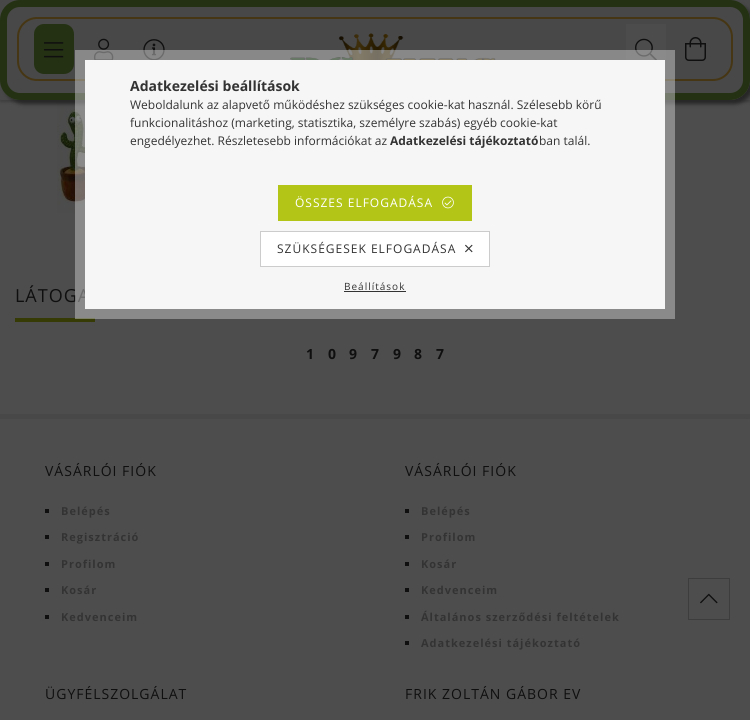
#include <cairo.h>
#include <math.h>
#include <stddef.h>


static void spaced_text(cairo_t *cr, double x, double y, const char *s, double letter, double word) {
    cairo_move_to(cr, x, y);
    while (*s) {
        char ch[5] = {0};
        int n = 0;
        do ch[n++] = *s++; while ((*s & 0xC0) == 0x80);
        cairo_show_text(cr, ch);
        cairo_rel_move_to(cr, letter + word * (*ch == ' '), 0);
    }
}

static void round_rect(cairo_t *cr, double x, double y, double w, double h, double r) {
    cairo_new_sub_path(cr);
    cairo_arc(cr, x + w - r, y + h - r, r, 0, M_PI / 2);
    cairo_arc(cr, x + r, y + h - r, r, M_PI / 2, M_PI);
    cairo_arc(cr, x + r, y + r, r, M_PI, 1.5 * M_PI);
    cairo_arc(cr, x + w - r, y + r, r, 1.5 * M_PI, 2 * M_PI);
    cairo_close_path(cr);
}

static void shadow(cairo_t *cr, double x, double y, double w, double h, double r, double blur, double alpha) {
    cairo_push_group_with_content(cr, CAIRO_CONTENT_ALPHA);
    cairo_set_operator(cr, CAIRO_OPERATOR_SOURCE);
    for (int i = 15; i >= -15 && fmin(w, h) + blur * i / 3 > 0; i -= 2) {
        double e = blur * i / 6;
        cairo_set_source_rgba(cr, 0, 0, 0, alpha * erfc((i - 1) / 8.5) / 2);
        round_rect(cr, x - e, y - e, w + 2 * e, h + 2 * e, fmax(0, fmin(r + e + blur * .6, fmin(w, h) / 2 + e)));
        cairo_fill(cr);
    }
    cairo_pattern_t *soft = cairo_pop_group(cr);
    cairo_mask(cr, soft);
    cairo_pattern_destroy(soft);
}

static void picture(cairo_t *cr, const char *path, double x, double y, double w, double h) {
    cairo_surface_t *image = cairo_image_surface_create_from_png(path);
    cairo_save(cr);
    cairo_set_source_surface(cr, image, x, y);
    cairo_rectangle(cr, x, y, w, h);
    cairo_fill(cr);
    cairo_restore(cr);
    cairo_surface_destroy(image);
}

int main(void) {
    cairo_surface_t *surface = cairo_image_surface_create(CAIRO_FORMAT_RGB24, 750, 720);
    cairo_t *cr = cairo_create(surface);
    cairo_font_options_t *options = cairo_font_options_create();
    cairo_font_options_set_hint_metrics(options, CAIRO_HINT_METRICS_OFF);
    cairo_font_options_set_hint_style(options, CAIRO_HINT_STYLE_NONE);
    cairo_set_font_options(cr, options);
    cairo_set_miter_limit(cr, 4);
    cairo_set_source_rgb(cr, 0.302, 0.302, 0.302);
    cairo_paint(cr);
    picture(cr, "img9.png", 57, 101, 28, 112);
    cairo_set_source_rgb(cr, 0, 0, 0);
    shadow(cr, 0, 2, 750, 100, 0, 1.5, 0.2);
    cairo_set_source_rgb(cr, 0.282, 0.282, 0.282);
    cairo_rectangle(cr, 0, 0, 750, 100);
    cairo_fill(cr);
    cairo_save(cr);
    cairo_set_fill_rule(cr, CAIRO_FILL_RULE_EVEN_ODD);
    cairo_new_path(cr);
    cairo_move_to(cr, 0, 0);
    cairo_line_to(cr, 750, 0);
    cairo_line_to(cr, 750, 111);
    cairo_line_to(cr, 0, 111);
    cairo_close_path(cr);
    cairo_move_to(cr, 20, 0);
    cairo_line_to(cr, 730, 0);
    cairo_curve_to(cr, 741, 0, 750, 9, 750, 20);
    cairo_line_to(cr, 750, 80);
    cairo_curve_to(cr, 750, 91, 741, 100, 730, 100);
    cairo_line_to(cr, 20, 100);
    cairo_curve_to(cr, 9, 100, 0, 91, 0, 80);
    cairo_line_to(cr, 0, 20);
    cairo_curve_to(cr, 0, 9, 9, 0, 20, 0);
    cairo_close_path(cr);
    cairo_clip(cr);
    cairo_set_source_rgb(cr, 0.149, 0.149, 0.149);
    shadow(cr, 4, 4, 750, 100, 20, 2, 1);
    cairo_restore(cr);
    round_rect(cr, 3.5, 3.5, 743, 93, 16.5);
    cairo_set_source_rgb(cr, 0.141, 0.192, 0.078);
    cairo_set_line_width(cr, 7);
    cairo_stroke(cr);
    round_rect(cr, 18, 18, 714, 62, 19);
    cairo_set_source_rgb(cr, 0.275, 0.212, 0.078);
    cairo_set_line_width(cr, 2);
    cairo_stroke(cr);
    picture(cr, "img4.png", 94, 38, 20, 22);
    picture(cr, "img5.png", 143, 39, 22, 21);
    picture(cr, "img6.png", 290, 33, 206, 27);
    cairo_set_source_rgb(cr, 0.298, 0.298, 0.298);
    cairo_rectangle(cr, 626, 24, 40, 50);
    cairo_fill(cr);
    picture(cr, "img7.png", 635, 38, 22, 22);
    cairo_select_font_face(cr, "Open Sans", CAIRO_FONT_SLANT_NORMAL, CAIRO_FONT_WEIGHT_NORMAL);
    cairo_set_font_size(cr, 18);
    cairo_set_source_rgb(cr, 0.059, 0.059, 0.059);
    spaced_text(cr, 15, 302, "LÁTOGA", 1, 0);
    cairo_set_source_rgb(cr, 0.212, 0.231, 0.027);
    cairo_rectangle(cr, 15, 318, 80, 4);
    cairo_fill(cr);
    cairo_rectangle(cr, 80, 55, 590, 259);
    cairo_set_source_rgba(cr, 0.784, 0.784, 0.784, 0.5);
    cairo_set_line_width(cr, 10);
    cairo_stroke(cr);
    cairo_set_source_rgb(cr, 0.961, 0.961, 0.961);
    cairo_rectangle(cr, 85, 60, 580, 249);
    cairo_fill(cr);
    cairo_select_font_face(cr, "Open Sans", CAIRO_FONT_SLANT_NORMAL, CAIRO_FONT_WEIGHT_BOLD);
    cairo_set_font_size(cr, 14);
    cairo_set_source_rgb(cr, 0.2, 0.2, 0.2);
    cairo_move_to(cr, 130, 91);
    cairo_show_text(cr, "Adatkezelési beállítások");
    cairo_select_font_face(cr, "Open Sans", CAIRO_FONT_SLANT_NORMAL, CAIRO_FONT_WEIGHT_NORMAL);
    cairo_set_font_size(cr, 12);
    cairo_move_to(cr, 130, 109);
    cairo_show_text(cr, "Weboldalunk az alapvető működéshez szükséges cookie-kat használ. Szélesebb körű");
    cairo_move_to(cr, 130, 127);
    cairo_show_text(cr, "funkcionalitáshoz (marketing, statisztika, személyre szabás) egyéb cookie-kat");
    cairo_move_to(cr, 130, 145);
    cairo_show_text(cr, "engedélyezhet. Részletesebb információkat az");
    cairo_select_font_face(cr, "Open Sans", CAIRO_FONT_SLANT_NORMAL, CAIRO_FONT_WEIGHT_BOLD);
    cairo_move_to(cr, 390, 145);
    cairo_show_text(cr, "Adatkezelési tájékoztató");
    cairo_select_font_face(cr, "Open Sans", CAIRO_FONT_SLANT_NORMAL, CAIRO_FONT_WEIGHT_NORMAL);
    cairo_move_to(cr, 539, 145);
    cairo_show_text(cr, "ban talál.");
    cairo_set_source_rgb(cr, 0.702, 0.776, 0.094);
    cairo_rectangle(cr, 278, 185, 194, 36);
    cairo_fill(cr);
    cairo_set_source_rgb(cr, 1, 1, 1);
    spaced_text(cr, 295, 207, "ÖSSZES ELFOGADÁSA", 1, 0);
    picture(cr, "img1.png", 442, 196, 12, 13);
    cairo_rectangle(cr, 260.5, 231.5, 229, 35);
    cairo_fill_preserve(cr);
    cairo_set_source_rgb(cr, 0.8, 0.8, 0.8);
    cairo_set_line_width(cr, 1);
    cairo_stroke(cr);
    cairo_set_source_rgb(cr, 0.2, 0.2, 0.2);
    spaced_text(cr, 277, 253, "SZÜKSÉGESEK ELFOGADÁSA", 1, 0);
    picture(cr, "img2.png", 465, 244, 8, 9);
    cairo_set_font_size(cr, 10);
    spaced_text(cr, 344, 290, "Beállítások", 1, 0);
    cairo_rectangle(cr, 344, 291, 62, 1);
    cairo_fill(cr);
    cairo_set_source_rgb(cr, 0.141, 0.192, 0.078);
    round_rect(cr, 34, 24, 40, 50, 10);
    cairo_fill(cr);
    picture(cr, "img3.png", 44, 42, 20, 16);
    picture(cr, "img8.png", 685, 37, 21, 24);
    cairo_select_font_face(cr, "Open Sans", CAIRO_FONT_SLANT_NORMAL, CAIRO_FONT_WEIGHT_BOLD);
    cairo_set_font_size(cr, 14);
    cairo_set_source_rgb(cr, 0.059, 0.059, 0.059);
    cairo_move_to(cr, 306, 359);
    cairo_show_text(cr, "1");
    cairo_move_to(cr, 328, 359);
    cairo_show_text(cr, "0");
    cairo_move_to(cr, 349, 359);
    cairo_show_text(cr, "9");
    cairo_move_to(cr, 371, 359);
    cairo_show_text(cr, "7");
    cairo_move_to(cr, 393, 359);
    cairo_show_text(cr, "9");
    cairo_move_to(cr, 414, 359);
    cairo_show_text(cr, "8");
    cairo_move_to(cr, 436, 359);
    cairo_show_text(cr, "7");
    cairo_set_source_rgb(cr, 0.282, 0.282, 0.282);
    cairo_rectangle(cr, 0, 414, 750, 5);
    cairo_fill(cr);
    cairo_select_font_face(cr, "Open Sans", CAIRO_FONT_SLANT_NORMAL, CAIRO_FONT_WEIGHT_NORMAL);
    cairo_set_source_rgb(cr, 0.059, 0.059, 0.059);
    spaced_text(cr, 45, 476, "VÁSÁRLÓI FIÓK", 1, 0);
    cairo_rectangle(cr, 45, 509, 4, 4);
    cairo_fill(cr);
    cairo_select_font_face(cr, "Open Sans", CAIRO_FONT_SLANT_NORMAL, CAIRO_FONT_WEIGHT_BOLD);
    cairo_set_font_size(cr, 11);
    cairo_set_source_rgb(cr, 0.2, 0.2, 0.2);
    spaced_text(cr, 61, 515, "Belépés", 1, 0);
    cairo_set_source_rgb(cr, 0.059, 0.059, 0.059);
    cairo_rectangle(cr, 45, 535, 4, 4);
    cairo_fill(cr);
    cairo_set_source_rgb(cr, 0.2, 0.2, 0.2);
    spaced_text(cr, 61, 541, "Regisztráció", 1, 0);
    cairo_set_source_rgb(cr, 0.059, 0.059, 0.059);
    cairo_rectangle(cr, 45, 562, 4, 4);
    cairo_fill(cr);
    cairo_set_source_rgb(cr, 0.2, 0.2, 0.2);
    spaced_text(cr, 61, 568, "Profilom", 1, 0);
    cairo_set_source_rgb(cr, 0.059, 0.059, 0.059);
    cairo_rectangle(cr, 45, 588, 4, 4);
    cairo_fill(cr);
    cairo_set_source_rgb(cr, 0.2, 0.2, 0.2);
    spaced_text(cr, 61, 594, "Kosár", 1, 0);
    cairo_set_source_rgb(cr, 0.059, 0.059, 0.059);
    cairo_rectangle(cr, 45, 615, 4, 4);
    cairo_fill(cr);
    cairo_set_source_rgb(cr, 0.2, 0.2, 0.2);
    spaced_text(cr, 61, 621, "Kedvenceim", 1, 0);
    cairo_select_font_face(cr, "Open Sans", CAIRO_FONT_SLANT_NORMAL, CAIRO_FONT_WEIGHT_NORMAL);
    cairo_set_font_size(cr, 14);
    cairo_set_source_rgb(cr, 0.059, 0.059, 0.059);
    spaced_text(cr, 405, 476, "VÁSÁRLÓI FIÓK", 1, 0);
    cairo_rectangle(cr, 405, 509, 4, 4);
    cairo_fill(cr);
    cairo_select_font_face(cr, "Open Sans", CAIRO_FONT_SLANT_NORMAL, CAIRO_FONT_WEIGHT_BOLD);
    cairo_set_font_size(cr, 11);
    cairo_set_source_rgb(cr, 0.2, 0.2, 0.2);
    spaced_text(cr, 421, 515, "Belépés", 1, 0);
    cairo_set_source_rgb(cr, 0.059, 0.059, 0.059);
    cairo_rectangle(cr, 405, 535, 4, 4);
    cairo_fill(cr);
    cairo_set_source_rgb(cr, 0.2, 0.2, 0.2);
    spaced_text(cr, 421, 541, "Profilom", 1, 0);
    cairo_set_source_rgb(cr, 0.059, 0.059, 0.059);
    cairo_rectangle(cr, 405, 562, 4, 4);
    cairo_fill(cr);
    cairo_set_source_rgb(cr, 0.2, 0.2, 0.2);
    spaced_text(cr, 421, 568, "Kosár", 1, 0);
    cairo_set_source_rgb(cr, 0.059, 0.059, 0.059);
    cairo_rectangle(cr, 405, 588, 4, 4);
    cairo_fill(cr);
    cairo_set_source_rgb(cr, 0.2, 0.2, 0.2);
    spaced_text(cr, 421, 594, "Kedvenceim", 1, 0);
    cairo_set_source_rgb(cr, 0.059, 0.059, 0.059);
    cairo_rectangle(cr, 405, 615, 4, 4);
    cairo_fill(cr);
    cairo_set_source_rgb(cr, 0.2, 0.2, 0.2);
    spaced_text(cr, 421, 621, "Általános szerződési feltételek", 1, 0);
    cairo_set_source_rgb(cr, 0.059, 0.059, 0.059);
    cairo_rectangle(cr, 405, 641, 4, 4);
    cairo_fill(cr);
    cairo_set_source_rgb(cr, 0.2, 0.2, 0.2);
    spaced_text(cr, 421, 647, "Adatkezelési tájékoztató", 1, 0);
    cairo_select_font_face(cr, "Open Sans", CAIRO_FONT_SLANT_NORMAL, CAIRO_FONT_WEIGHT_NORMAL);
    cairo_set_font_size(cr, 14);
    cairo_set_source_rgb(cr, 0.059, 0.059, 0.059);
    spaced_text(cr, 45, 699, "ÜGYFÉLSZOLGÁLAT", 1, 0);
    spaced_text(cr, 405, 699, "FRIK ZOLTÁN GÁBOR EV", 1, 0);
    cairo_rectangle(cr, 688.5, 578.5, 41, 41);
    cairo_set_source_rgb(cr, 0.239, 0.239, 0.239);
    cairo_stroke(cr);
    picture(cr, "img10.png", 700, 593, 18, 11);
    cairo_surface_write_to_png(surface, "page.png");
    cairo_font_options_destroy(options);
    cairo_destroy(cr);
    cairo_surface_destroy(surface);
    return 0;
}
